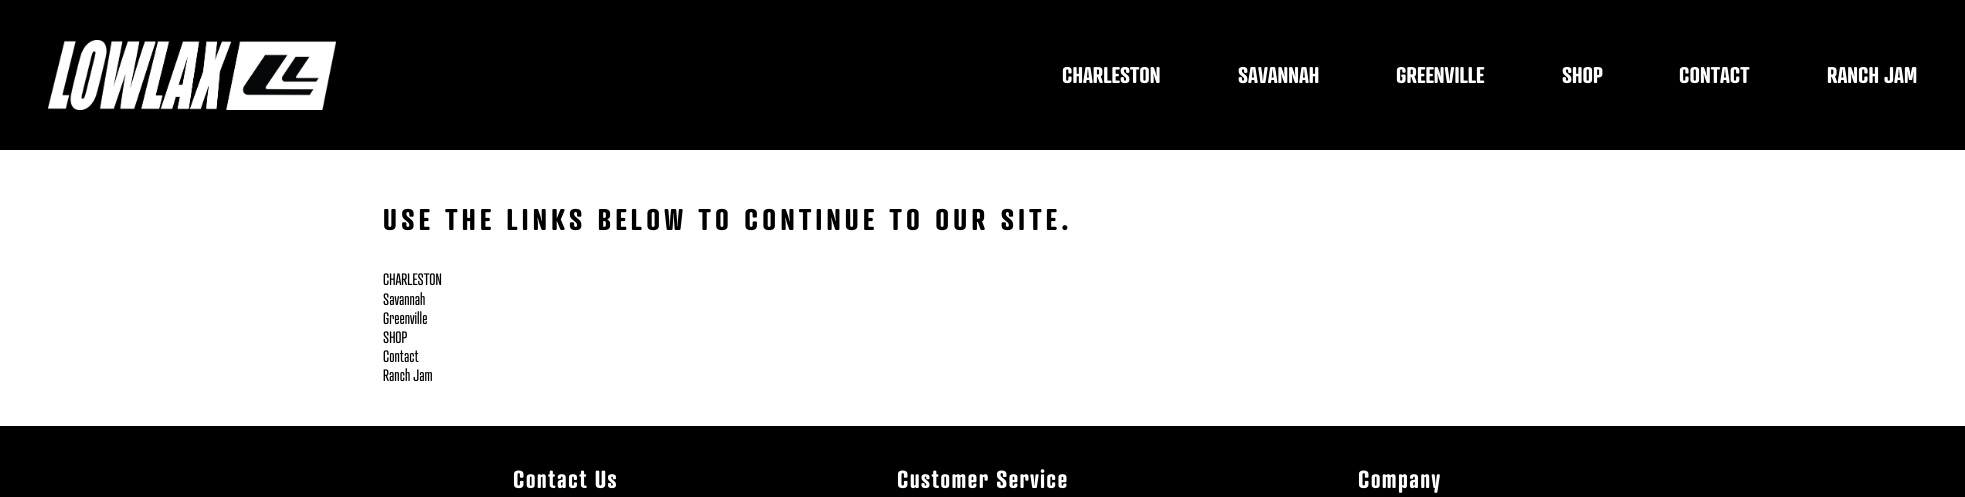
#include <cairo.h>
#include <math.h>
#include <stddef.h>


static void spaced_text(cairo_t *cr, double x, double y, const char *s, double letter, double word) {
    cairo_move_to(cr, x, y);
    while (*s) {
        char ch[5] = {0};
        int n = 0;
        do ch[n++] = *s++; while ((*s & 0xC0) == 0x80);
        cairo_show_text(cr, ch);
        cairo_rel_move_to(cr, letter + word * (*ch == ' '), 0);
    }
}

static void picture(cairo_t *cr, const char *path, double x, double y, double w, double h) {
    cairo_surface_t *image = cairo_image_surface_create_from_png(path);
    cairo_save(cr);
    cairo_set_source_surface(cr, image, x, y);
    cairo_rectangle(cr, x, y, w, h);
    cairo_fill(cr);
    cairo_restore(cr);
    cairo_surface_destroy(image);
}

int main(void) {
    cairo_surface_t *surface = cairo_image_surface_create(CAIRO_FORMAT_RGB24, 1965, 497);
    cairo_t *cr = cairo_create(surface);
    cairo_font_options_t *options = cairo_font_options_create();
    cairo_font_options_set_hint_metrics(options, CAIRO_HINT_METRICS_OFF);
    cairo_font_options_set_hint_style(options, CAIRO_HINT_STYLE_NONE);
    cairo_set_font_options(cr, options);
    cairo_set_miter_limit(cr, 4);
    cairo_set_source_rgb(cr, 1, 1, 1);
    cairo_paint(cr);
    cairo_set_source_rgb(cr, 0, 0, 0);
    cairo_rectangle(cr, 0, 0, 1965, 150);
    cairo_fill(cr);
    picture(cr, "img1.png", 48, 40, 288, 70);
    cairo_select_font_face(cr, "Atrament", CAIRO_FONT_SLANT_NORMAL, CAIRO_FONT_WEIGHT_BOLD);
    cairo_set_font_size(cr, 22);
    cairo_set_source_rgb(cr, 1, 1, 1);
    cairo_move_to(cr, 1062, 83);
    cairo_show_text(cr, "CHARLESTON");
    cairo_move_to(cr, 1238, 83);
    cairo_show_text(cr, "SAVANNAH");
    cairo_move_to(cr, 1396, 83);
    cairo_show_text(cr, "GREENVILLE");
    cairo_move_to(cr, 1562, 83);
    cairo_show_text(cr, "SHOP");
    cairo_move_to(cr, 1679, 83);
    cairo_show_text(cr, "CONTACT");
    cairo_move_to(cr, 1827, 83);
    cairo_show_text(cr, "RANCH JAM");
    cairo_set_font_size(cr, 29);
    cairo_set_source_rgb(cr, 0, 0, 0);
    spaced_text(cr, 383, 230, "USE THE LINKS BELOW TO CONTINUE TO OUR SITE.", 4.35, 0);
    cairo_select_font_face(cr, "Atrament", CAIRO_FONT_SLANT_NORMAL, CAIRO_FONT_WEIGHT_NORMAL);
    cairo_set_font_size(cr, 16);
    cairo_move_to(cr, 383, 285);
    cairo_show_text(cr, "CHARLESTON");
    cairo_move_to(cr, 383, 305);
    cairo_show_text(cr, "Savannah");
    cairo_move_to(cr, 383, 324);
    cairo_show_text(cr, "Greenville");
    cairo_move_to(cr, 383, 343);
    cairo_show_text(cr, "SHOP");
    cairo_move_to(cr, 383, 362);
    cairo_show_text(cr, "Contact");
    cairo_move_to(cr, 383, 381);
    cairo_show_text(cr, "Ranch Jam");
    cairo_rectangle(cr, 0, 426, 1965, 71);
    cairo_fill(cr);
    cairo_select_font_face(cr, "Atrament", CAIRO_FONT_SLANT_NORMAL, CAIRO_FONT_WEIGHT_BOLD);
    cairo_set_font_size(cr, 24);
    cairo_set_source_rgb(cr, 1, 1, 1);
    spaced_text(cr, 513, 488, "Contact Us", 1.25, 0);
    spaced_text(cr, 897, 488, "Customer Service", 1.25, 0);
    spaced_text(cr, 1358, 488, "Company", 1.25, 0);
    cairo_surface_write_to_png(surface, "page.png");
    cairo_font_options_destroy(options);
    cairo_destroy(cr);
    cairo_surface_destroy(surface);
    return 0;
}
